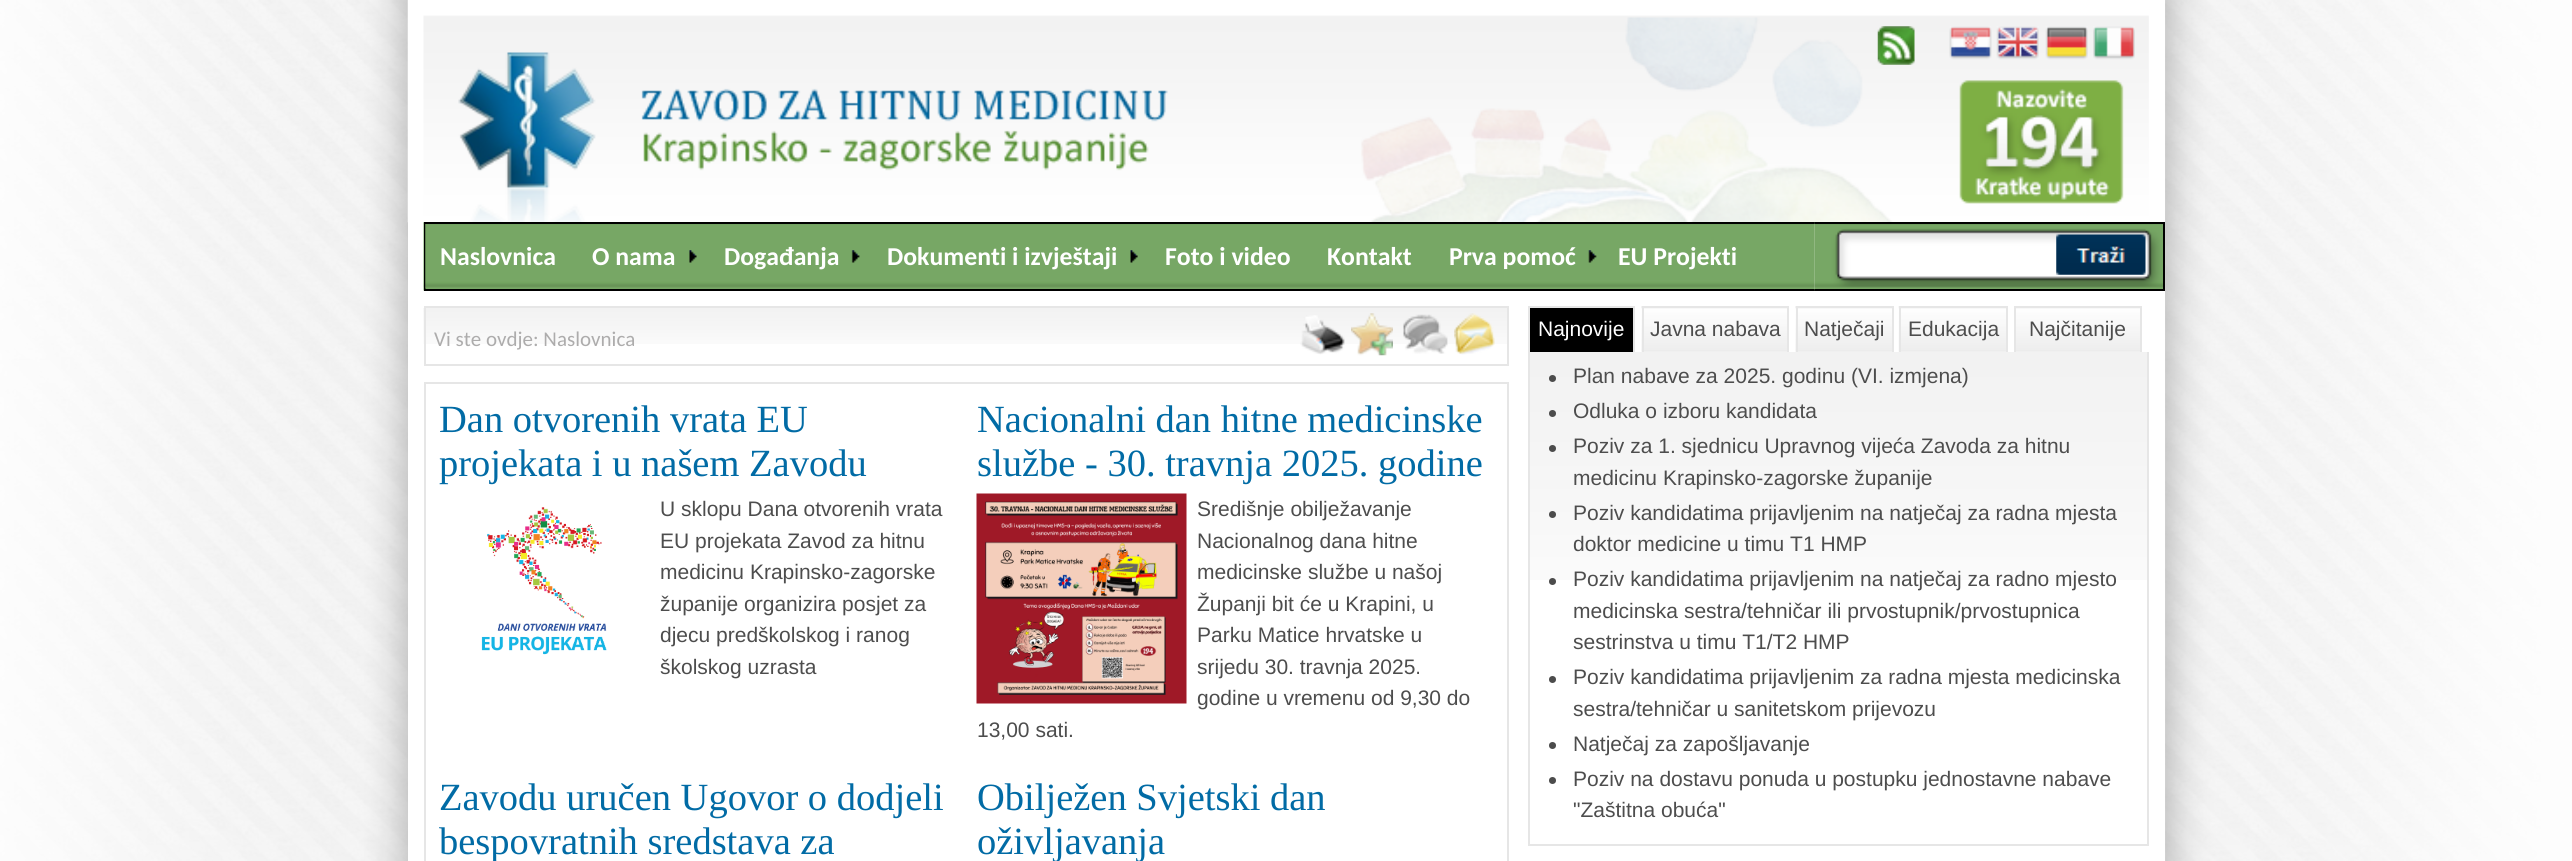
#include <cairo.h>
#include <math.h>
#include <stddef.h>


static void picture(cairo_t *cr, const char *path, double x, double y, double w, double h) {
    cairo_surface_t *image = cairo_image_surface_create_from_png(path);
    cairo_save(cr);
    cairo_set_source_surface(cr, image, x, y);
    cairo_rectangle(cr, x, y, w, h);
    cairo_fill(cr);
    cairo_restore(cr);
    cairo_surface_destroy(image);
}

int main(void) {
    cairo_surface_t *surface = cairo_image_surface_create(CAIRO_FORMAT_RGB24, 2572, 861);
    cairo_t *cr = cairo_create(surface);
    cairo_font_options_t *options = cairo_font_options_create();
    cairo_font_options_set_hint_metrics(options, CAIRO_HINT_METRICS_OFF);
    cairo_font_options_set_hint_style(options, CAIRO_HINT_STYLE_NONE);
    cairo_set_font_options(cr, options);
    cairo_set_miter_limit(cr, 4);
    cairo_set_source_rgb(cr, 1, 1, 1);
    cairo_paint(cr);
    picture(cr, "img1.png", 0, 0, 2572, 861);
    cairo_set_source_rgb(cr, 1, 1, 1);
    cairo_rectangle(cr, 408, 0, 1757, 861);
    cairo_fill(cr);
    picture(cr, "img2.png", 407, 0, 1742, 223);
    picture(cr, "img3.png", 1877, 26, 38, 39);
    picture(cr, "img4.png", 1949, 26, 43, 34);
    picture(cr, "img5.png", 1996, 26, 43, 34);
    picture(cr, "img6.png", 2045, 26, 43, 34);
    picture(cr, "img7.png", 2093, 26, 42, 34);
    picture(cr, "img8.png", 1959, 80, 165, 124);
    picture(cr, "img9.png", 423, 222, 1327, 69);
    cairo_set_source_rgb(cr, 0, 0, 0);
    cairo_rectangle(cr, 424, 222, 1391, 2);
    cairo_fill(cr);
    cairo_rectangle(cr, 424, 289, 1391, 2);
    cairo_fill(cr);
    cairo_rectangle(cr, 424, 222, 2, 69);
    cairo_fill(cr);
    picture(cr, "img10.png", 425, 224, 1, 65);
    cairo_select_font_face(cr, "Carlito", CAIRO_FONT_SLANT_NORMAL, CAIRO_FONT_WEIGHT_BOLD);
    cairo_set_font_size(cr, 25.75);
    cairo_set_source_rgb(cr, 1, 1, 1);
    cairo_move_to(cr, 440, 265);
    cairo_show_text(cr, "Naslovnica");
    cairo_move_to(cr, 592, 265);
    cairo_show_text(cr, "O nama");
    picture(cr, "img11.png", 689, 250, 8, 13);
    cairo_move_to(cr, 724, 265);
    cairo_show_text(cr, "Događanja");
    picture(cr, "img12.png", 851, 250, 9, 13);
    cairo_move_to(cr, 887, 265);
    cairo_show_text(cr, "Dokumenti i izvještaji");
    picture(cr, "img13.png", 1130, 250, 8, 13);
    cairo_move_to(cr, 1165, 265);
    cairo_show_text(cr, "Foto i video");
    cairo_move_to(cr, 1327, 265);
    cairo_show_text(cr, "Kontakt");
    cairo_move_to(cr, 1449, 265);
    cairo_show_text(cr, "Prva pomoć");
    picture(cr, "img14.png", 1588, 250, 9, 13);
    cairo_move_to(cr, 1618, 265);
    cairo_show_text(cr, "EU Projekti");
    picture(cr, "img15.png", 1750, 224, 65, 65);
    picture(cr, "img16.png", 1814, 222, 349, 69);
    cairo_set_source_rgb(cr, 0, 0, 0);
    cairo_rectangle(cr, 1815, 222, 350, 2);
    cairo_fill(cr);
    cairo_rectangle(cr, 2163, 222, 2, 69);
    cairo_fill(cr);
    cairo_rectangle(cr, 1815, 289, 350, 2);
    cairo_fill(cr);
    picture(cr, "img17.png", 2056, 234, 90, 41);
    picture(cr, "img18.png", 423, 308, 1084, 36);
    cairo_rectangle(cr, 425, 307, 1083, 58);
    cairo_set_source_rgb(cr, 0.902, 0.902, 0.902);
    cairo_stroke(cr);
    cairo_select_font_face(cr, "Carlito", CAIRO_FONT_SLANT_NORMAL, CAIRO_FONT_WEIGHT_NORMAL);
    cairo_set_font_size(cr, 21);
    cairo_set_source_rgb(cr, 0.678, 0.675, 0.675);
    cairo_move_to(cr, 434, 346);
    cairo_show_text(cr, "Vi ste ovdje: Naslovnica");
    picture(cr, "img19.png", 1300, 315, 45, 40);
    picture(cr, "img20.png", 1351, 313, 42, 43);
    picture(cr, "img21.png", 1403, 314, 45, 40);
    picture(cr, "img22.png", 1454, 313, 41, 42);
    cairo_rectangle(cr, 425, 383, 1083, 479);
    cairo_set_source_rgb(cr, 0.902, 0.902, 0.902);
    cairo_stroke(cr);
    cairo_select_font_face(cr, "Liberation Serif", CAIRO_FONT_SLANT_NORMAL, CAIRO_FONT_WEIGHT_NORMAL);
    cairo_set_font_size(cr, 38.5);
    cairo_set_source_rgb(cr, 0.004, 0.42, 0.647);
    cairo_move_to(cr, 439, 432);
    cairo_show_text(cr, "Dan otvorenih vrata EU");
    cairo_move_to(cr, 439, 476);
    cairo_show_text(cr, "projekata i u našem Zavodu");
    picture(cr, "img23.png", 481, 507, 126, 148);
    cairo_select_font_face(cr, "Liberation Sans", CAIRO_FONT_SLANT_NORMAL, CAIRO_FONT_WEIGHT_NORMAL);
    cairo_set_font_size(cr, 21);
    cairo_set_source_rgb(cr, 0.302, 0.302, 0.302);
    cairo_move_to(cr, 660, 516);
    cairo_show_text(cr, "U sklopu Dana otvorenih vrata");
    cairo_move_to(cr, 660, 548);
    cairo_show_text(cr, "EU projekata Zavod za hitnu");
    cairo_move_to(cr, 660, 579);
    cairo_show_text(cr, "medicinu Krapinsko-zagorske");
    cairo_move_to(cr, 660, 611);
    cairo_show_text(cr, "županije organizira posjet za");
    cairo_move_to(cr, 660, 642);
    cairo_show_text(cr, "djecu predškolskog i ranog");
    cairo_move_to(cr, 660, 674);
    cairo_show_text(cr, "školskog uzrasta");
    cairo_select_font_face(cr, "Liberation Serif", CAIRO_FONT_SLANT_NORMAL, CAIRO_FONT_WEIGHT_NORMAL);
    cairo_set_font_size(cr, 38.5);
    cairo_set_source_rgb(cr, 0.004, 0.42, 0.647);
    cairo_move_to(cr, 977, 432);
    cairo_show_text(cr, "Nacionalni dan hitne medicinske");
    cairo_move_to(cr, 977, 476);
    cairo_show_text(cr, "službe - 30. travnja 2025. godine");
    picture(cr, "img24.png", 976, 493, 211, 211);
    cairo_select_font_face(cr, "Liberation Sans", CAIRO_FONT_SLANT_NORMAL, CAIRO_FONT_WEIGHT_NORMAL);
    cairo_set_font_size(cr, 21);
    cairo_set_source_rgb(cr, 0.302, 0.302, 0.302);
    cairo_move_to(cr, 1197, 516);
    cairo_show_text(cr, "Središnje obilježavanje");
    cairo_move_to(cr, 1197, 548);
    cairo_show_text(cr, "Nacionalnog dana hitne");
    cairo_move_to(cr, 1197, 579);
    cairo_show_text(cr, "medicinske službe u našoj");
    cairo_move_to(cr, 1197, 611);
    cairo_show_text(cr, "Županji bit će u Krapini, u");
    cairo_move_to(cr, 1197, 642);
    cairo_show_text(cr, "Parku Matice hrvatske u");
    cairo_move_to(cr, 1197, 674);
    cairo_show_text(cr, "srijedu 30. travnja 2025.");
    cairo_move_to(cr, 1197, 705);
    cairo_show_text(cr, "godine u vremenu od 9,30 do");
    cairo_move_to(cr, 977, 737);
    cairo_show_text(cr, "13,00 sati.");
    cairo_select_font_face(cr, "Liberation Serif", CAIRO_FONT_SLANT_NORMAL, CAIRO_FONT_WEIGHT_NORMAL);
    cairo_set_font_size(cr, 38.5);
    cairo_set_source_rgb(cr, 0.004, 0.42, 0.647);
    cairo_move_to(cr, 439, 810);
    cairo_show_text(cr, "Zavodu uručen Ugovor o dodjeli");
    cairo_move_to(cr, 439, 854);
    cairo_show_text(cr, "bespovratnih sredstava za");
    cairo_move_to(cr, 977, 810);
    cairo_show_text(cr, "Obilježen Svjetski dan");
    cairo_move_to(cr, 977, 854);
    cairo_show_text(cr, "oživljavanja");
    cairo_set_source_rgb(cr, 0, 0, 0);
    cairo_rectangle(cr, 1530, 308, 103, 44);
    cairo_fill(cr);
    cairo_set_source_rgb(cr, 0.902, 0.902, 0.902);
    cairo_rectangle(cr, 1528, 306, 107, 2);
    cairo_fill(cr);
    cairo_rectangle(cr, 1633, 306, 2, 46);
    cairo_fill(cr);
    cairo_rectangle(cr, 1528, 306, 2, 46);
    cairo_fill(cr);
    cairo_select_font_face(cr, "Liberation Sans", CAIRO_FONT_SLANT_NORMAL, CAIRO_FONT_WEIGHT_NORMAL);
    cairo_set_font_size(cr, 21);
    cairo_set_source_rgb(cr, 1, 1, 1);
    cairo_move_to(cr, 1538, 336);
    cairo_show_text(cr, "Najnovije");
    picture(cr, "img25.png", 1641, 306, 146, 46);
    cairo_set_source_rgb(cr, 0.902, 0.902, 0.902);
    cairo_rectangle(cr, 1642, 306, 147, 2);
    cairo_fill(cr);
    cairo_rectangle(cr, 1787, 306, 2, 46);
    cairo_fill(cr);
    cairo_rectangle(cr, 1642, 306, 2, 46);
    cairo_fill(cr);
    cairo_set_source_rgb(cr, 0.302, 0.302, 0.302);
    cairo_move_to(cr, 1650, 336);
    cairo_show_text(cr, "Javna nabava");
    picture(cr, "img26.png", 1795, 306, 97, 46);
    cairo_set_source_rgb(cr, 0.902, 0.902, 0.902);
    cairo_rectangle(cr, 1796, 306, 98, 2);
    cairo_fill(cr);
    cairo_rectangle(cr, 1892, 306, 2, 46);
    cairo_fill(cr);
    cairo_rectangle(cr, 1796, 306, 2, 46);
    cairo_fill(cr);
    cairo_set_source_rgb(cr, 0.302, 0.302, 0.302);
    cairo_move_to(cr, 1804, 336);
    cairo_show_text(cr, "Natječaji");
    picture(cr, "img27.png", 1898, 306, 108, 46);
    cairo_set_source_rgb(cr, 0.902, 0.902, 0.902);
    cairo_rectangle(cr, 1899, 306, 108, 2);
    cairo_fill(cr);
    cairo_rectangle(cr, 2006, 306, 2, 46);
    cairo_fill(cr);
    cairo_rectangle(cr, 1899, 306, 2, 46);
    cairo_fill(cr);
    cairo_set_source_rgb(cr, 0.302, 0.302, 0.302);
    cairo_move_to(cr, 1908, 336);
    cairo_show_text(cr, "Edukacija");
    picture(cr, "img28.png", 2016, 308, 124, 44);
    cairo_set_source_rgb(cr, 0.902, 0.902, 0.902);
    cairo_rectangle(cr, 2014, 306, 128, 2);
    cairo_fill(cr);
    cairo_rectangle(cr, 2140, 306, 2, 46);
    cairo_fill(cr);
    cairo_rectangle(cr, 2014, 306, 2, 46);
    cairo_fill(cr);
    cairo_set_source_rgb(cr, 0.302, 0.302, 0.302);
    cairo_move_to(cr, 2029, 336);
    cairo_show_text(cr, "Najčitanije");
    picture(cr, "img29.png", 1530, 352, 617, 228);
    cairo_set_source_rgb(cr, 0.902, 0.902, 0.902);
    cairo_rectangle(cr, 2147, 352, 2, 493);
    cairo_fill(cr);
    cairo_rectangle(cr, 1528, 844, 621, 2);
    cairo_fill(cr);
    cairo_rectangle(cr, 1528, 352, 2, 493);
    cairo_fill(cr);
    cairo_set_source_rgb(cr, 0.298, 0.298, 0.298);
    cairo_arc(cr, 1552.5, 378.5, 3.5, 0, 2 * M_PI);
    cairo_fill(cr);
    cairo_set_source_rgb(cr, 0.302, 0.302, 0.302);
    cairo_move_to(cr, 1573, 383);
    cairo_show_text(cr, "Plan nabave za 2025. godinu (VI. izmjena)");
    cairo_set_source_rgb(cr, 0.298, 0.298, 0.298);
    cairo_new_path(cr);
    cairo_arc(cr, 1552.5, 413.5, 3.5, 0, 2 * M_PI);
    cairo_fill(cr);
    cairo_set_source_rgb(cr, 0.302, 0.302, 0.302);
    cairo_move_to(cr, 1573, 418);
    cairo_show_text(cr, "Odluka o izboru kandidata");
    cairo_set_source_rgb(cr, 0.298, 0.298, 0.298);
    cairo_new_path(cr);
    cairo_arc(cr, 1552.5, 448.5, 3.5, 0, 2 * M_PI);
    cairo_fill(cr);
    cairo_set_source_rgb(cr, 0.302, 0.302, 0.302);
    cairo_move_to(cr, 1573, 453);
    cairo_show_text(cr, "Poziv za 1. sjednicu Upravnog vijeća Zavoda za hitnu");
    cairo_move_to(cr, 1573, 485);
    cairo_show_text(cr, "medicinu Krapinsko-zagorske županije");
    cairo_set_source_rgb(cr, 0.298, 0.298, 0.298);
    cairo_new_path(cr);
    cairo_arc(cr, 1552.5, 514.5, 3.5, 0, 2 * M_PI);
    cairo_fill(cr);
    cairo_set_source_rgb(cr, 0.302, 0.302, 0.302);
    cairo_move_to(cr, 1573, 520);
    cairo_show_text(cr, "Poziv kandidatima prijavljenim na natječaj za radna mjesta");
    cairo_move_to(cr, 1573, 551);
    cairo_show_text(cr, "doktor medicine u timu T1 HMP");
    cairo_set_source_rgb(cr, 0.298, 0.298, 0.298);
    cairo_new_path(cr);
    cairo_arc(cr, 1552.5, 581.5, 3.5, 0, 2 * M_PI);
    cairo_fill(cr);
    cairo_set_source_rgb(cr, 0.302, 0.302, 0.302);
    cairo_move_to(cr, 1573, 586);
    cairo_show_text(cr, "Poziv kandidatima prijavljenim na natječaj za radno mjesto");
    cairo_move_to(cr, 1573, 618);
    cairo_show_text(cr, "medicinska sestra/tehničar ili prvostupnik/prvostupnica");
    cairo_move_to(cr, 1573, 649);
    cairo_show_text(cr, "sestrinstva u timu T1/T2 HMP");
    cairo_set_source_rgb(cr, 0.298, 0.298, 0.298);
    cairo_new_path(cr);
    cairo_arc(cr, 1552.5, 679.5, 3.5, 0, 2 * M_PI);
    cairo_fill(cr);
    cairo_set_source_rgb(cr, 0.302, 0.302, 0.302);
    cairo_move_to(cr, 1573, 684);
    cairo_show_text(cr, "Poziv kandidatima prijavljenim za radna mjesta medicinska");
    cairo_move_to(cr, 1573, 716);
    cairo_show_text(cr, "sestra/tehničar u sanitetskom prijevozu");
    cairo_set_source_rgb(cr, 0.298, 0.298, 0.298);
    cairo_new_path(cr);
    cairo_arc(cr, 1552.5, 745.5, 3.5, 0, 2 * M_PI);
    cairo_fill(cr);
    cairo_set_source_rgb(cr, 0.302, 0.302, 0.302);
    cairo_move_to(cr, 1573, 751);
    cairo_show_text(cr, "Natječaj za zapošljavanje");
    cairo_set_source_rgb(cr, 0.298, 0.298, 0.298);
    cairo_new_path(cr);
    cairo_arc(cr, 1552.5, 780.5, 3.5, 0, 2 * M_PI);
    cairo_fill(cr);
    cairo_set_source_rgb(cr, 0.302, 0.302, 0.302);
    cairo_move_to(cr, 1573, 786);
    cairo_show_text(cr, "Poziv na dostavu ponuda u postupku jednostavne nabave");
    cairo_move_to(cr, 1573, 817);
    cairo_show_text(cr, "\"Zaštitna obuća\"");
    cairo_surface_write_to_png(surface, "page.png");
    cairo_font_options_destroy(options);
    cairo_destroy(cr);
    cairo_surface_destroy(surface);
    return 0;
}
